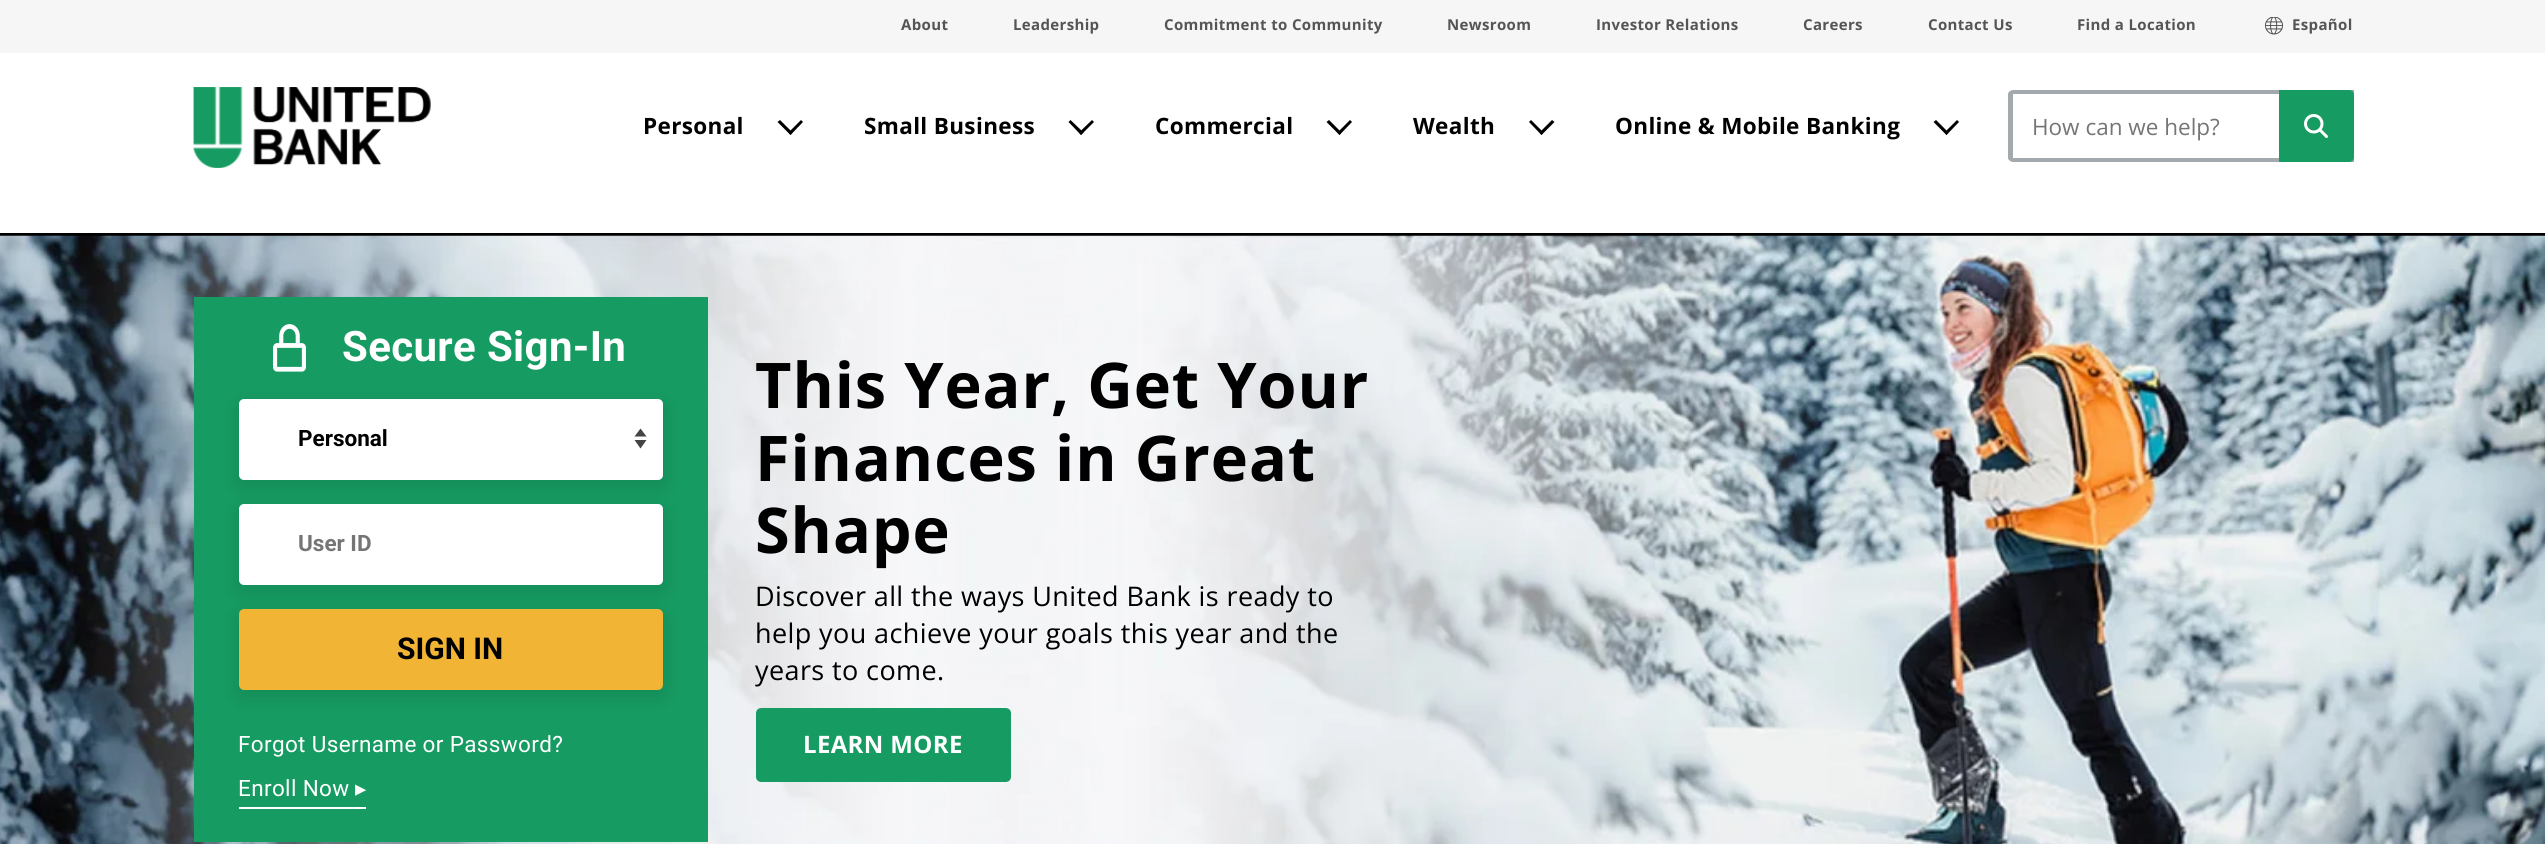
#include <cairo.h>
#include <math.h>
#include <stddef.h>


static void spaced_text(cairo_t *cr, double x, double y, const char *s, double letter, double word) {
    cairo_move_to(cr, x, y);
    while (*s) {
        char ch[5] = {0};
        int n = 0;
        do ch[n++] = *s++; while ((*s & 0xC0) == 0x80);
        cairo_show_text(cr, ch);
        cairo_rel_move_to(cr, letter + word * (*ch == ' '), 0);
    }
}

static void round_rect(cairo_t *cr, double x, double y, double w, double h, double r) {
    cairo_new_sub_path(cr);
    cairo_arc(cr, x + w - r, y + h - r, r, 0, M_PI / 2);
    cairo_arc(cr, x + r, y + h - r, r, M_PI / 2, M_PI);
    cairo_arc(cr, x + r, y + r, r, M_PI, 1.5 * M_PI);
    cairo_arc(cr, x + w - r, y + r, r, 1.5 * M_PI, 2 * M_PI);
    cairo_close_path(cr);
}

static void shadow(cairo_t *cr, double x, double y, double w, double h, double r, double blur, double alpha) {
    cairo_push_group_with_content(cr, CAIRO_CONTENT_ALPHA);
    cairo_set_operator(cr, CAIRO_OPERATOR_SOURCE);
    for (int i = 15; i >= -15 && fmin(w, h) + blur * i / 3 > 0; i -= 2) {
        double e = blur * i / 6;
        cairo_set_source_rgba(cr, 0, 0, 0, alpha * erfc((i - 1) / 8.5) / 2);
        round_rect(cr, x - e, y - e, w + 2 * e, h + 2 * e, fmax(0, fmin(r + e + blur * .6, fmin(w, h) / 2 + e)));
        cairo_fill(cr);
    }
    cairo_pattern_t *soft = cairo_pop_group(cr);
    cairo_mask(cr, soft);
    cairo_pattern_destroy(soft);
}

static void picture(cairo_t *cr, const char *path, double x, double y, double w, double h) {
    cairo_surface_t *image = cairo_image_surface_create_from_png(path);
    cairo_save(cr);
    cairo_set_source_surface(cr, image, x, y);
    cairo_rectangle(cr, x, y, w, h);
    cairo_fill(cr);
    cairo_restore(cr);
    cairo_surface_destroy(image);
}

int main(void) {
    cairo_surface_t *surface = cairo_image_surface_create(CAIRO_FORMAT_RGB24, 2545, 844);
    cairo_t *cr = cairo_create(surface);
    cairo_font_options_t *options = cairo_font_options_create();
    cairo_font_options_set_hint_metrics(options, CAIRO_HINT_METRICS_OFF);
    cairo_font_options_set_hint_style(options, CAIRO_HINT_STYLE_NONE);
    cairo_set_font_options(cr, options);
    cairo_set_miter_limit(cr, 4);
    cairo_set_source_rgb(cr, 1, 1, 1);
    cairo_paint(cr);
    cairo_set_source_rgb(cr, 0.961, 0.961, 0.961);
    cairo_rectangle(cr, 0, 0, 2545, 53);
    cairo_fill(cr);
    cairo_select_font_face(cr, "Open Sans", CAIRO_FONT_SLANT_NORMAL, CAIRO_FONT_WEIGHT_BOLD);
    cairo_set_font_size(cr, 15);
    cairo_set_source_rgb(cr, 0.333, 0.333, 0.333);
    spaced_text(cr, 901, 30, "About", 0.35, 0);
    spaced_text(cr, 1013, 30, "Leadership", 0.35, 0);
    spaced_text(cr, 1164, 30, "Commitment to Community", 0.35, 0);
    spaced_text(cr, 1447, 30, "Newsroom", 0.35, 0);
    spaced_text(cr, 1596, 30, "Investor Relations", 0.35, 0);
    spaced_text(cr, 1803, 30, "Careers", 0.35, 0);
    spaced_text(cr, 1928, 30, "Contact Us", 0.35, 0);
    spaced_text(cr, 2077, 30, "Find a Location", 0.35, 0);
    picture(cr, "img1.png", 2265, 17, 18, 18);
    spaced_text(cr, 2292, 30, "Español", 0.35, 0);
    picture(cr, "img2.png", 193, 87, 238, 81);
    cairo_set_font_size(cr, 22.5);
    cairo_set_source_rgb(cr, 0, 0, 0);
    spaced_text(cr, 643, 134, "Personal", 0.35, 0);
    cairo_new_path(cr);
    cairo_move_to(cr, 801, 120);
    cairo_line_to(cr, 803, 122);
    cairo_line_to(cr, 790.5, 135);
    cairo_line_to(cr, 788.5, 132.5);
    cairo_close_path(cr);
    cairo_fill(cr);
    cairo_new_path(cr);
    cairo_move_to(cr, 780, 120);
    cairo_line_to(cr, 792.5, 132.5);
    cairo_line_to(cr, 790.5, 135);
    cairo_line_to(cr, 777.5, 122);
    cairo_close_path(cr);
    cairo_fill(cr);
    spaced_text(cr, 864, 134, "Small Business", 0.35, 0);
    cairo_new_path(cr);
    cairo_move_to(cr, 1092, 120);
    cairo_line_to(cr, 1094, 122);
    cairo_line_to(cr, 1081, 135);
    cairo_line_to(cr, 1079, 132.5);
    cairo_close_path(cr);
    cairo_fill(cr);
    cairo_new_path(cr);
    cairo_move_to(cr, 1070.5, 120);
    cairo_line_to(cr, 1083.5, 132.5);
    cairo_line_to(cr, 1081, 135);
    cairo_line_to(cr, 1068.5, 122);
    cairo_close_path(cr);
    cairo_fill(cr);
    spaced_text(cr, 1155, 134, "Commercial", 0.35, 0);
    cairo_new_path(cr);
    cairo_move_to(cr, 1350, 120);
    cairo_line_to(cr, 1352, 122);
    cairo_line_to(cr, 1339.5, 135);
    cairo_line_to(cr, 1337.5, 132.5);
    cairo_close_path(cr);
    cairo_fill(cr);
    cairo_new_path(cr);
    cairo_move_to(cr, 1329, 120);
    cairo_line_to(cr, 1341.5, 132.5);
    cairo_line_to(cr, 1339.5, 135);
    cairo_line_to(cr, 1326.5, 122);
    cairo_close_path(cr);
    cairo_fill(cr);
    spaced_text(cr, 1413, 134, "Wealth", 0.35, 0);
    cairo_new_path(cr);
    cairo_move_to(cr, 1552, 120);
    cairo_line_to(cr, 1554.5, 122);
    cairo_line_to(cr, 1541.5, 135);
    cairo_line_to(cr, 1539.5, 132.5);
    cairo_close_path(cr);
    cairo_fill(cr);
    cairo_new_path(cr);
    cairo_move_to(cr, 1531, 120);
    cairo_line_to(cr, 1543.5, 132.5);
    cairo_line_to(cr, 1541.5, 135);
    cairo_line_to(cr, 1529, 122);
    cairo_close_path(cr);
    cairo_fill(cr);
    spaced_text(cr, 1615, 134, "Online & Mobile Banking", 0.35, 0);
    cairo_new_path(cr);
    cairo_move_to(cr, 1957, 120);
    cairo_line_to(cr, 1959, 122);
    cairo_line_to(cr, 1946.5, 135);
    cairo_line_to(cr, 1944.5, 132.5);
    cairo_close_path(cr);
    cairo_fill(cr);
    cairo_new_path(cr);
    cairo_move_to(cr, 1936, 120);
    cairo_line_to(cr, 1948.5, 132.5);
    cairo_line_to(cr, 1946.5, 135);
    cairo_line_to(cr, 1933.5, 122);
    cairo_close_path(cr);
    cairo_fill(cr);
    cairo_set_source_rgb(cr, 0.635, 0.667, 0.678);
    cairo_set_fill_rule(cr, CAIRO_FILL_RULE_EVEN_ODD);
    cairo_new_path(cr);
    cairo_move_to(cr, 2013, 90);
    cairo_line_to(cr, 2354, 90);
    cairo_line_to(cr, 2354, 162);
    cairo_line_to(cr, 2013, 162);
    cairo_curve_to(cr, 2011, 162, 2008, 160, 2008, 158);
    cairo_line_to(cr, 2008, 94);
    cairo_curve_to(cr, 2008, 92, 2011, 90, 2013, 90);
    cairo_close_path(cr);
    cairo_move_to(cr, 2013, 94);
    cairo_line_to(cr, 2354, 94);
    cairo_line_to(cr, 2354, 158);
    cairo_line_to(cr, 2013, 158);
    cairo_close_path(cr);
    cairo_fill(cr);
    cairo_select_font_face(cr, "Open Sans", CAIRO_FONT_SLANT_NORMAL, CAIRO_FONT_WEIGHT_NORMAL);
    cairo_set_source_rgb(cr, 0.459, 0.459, 0.459);
    cairo_move_to(cr, 2032, 135);
    cairo_show_text(cr, "How can we help?");
    cairo_set_source_rgb(cr, 0.086, 0.608, 0.384);
    cairo_new_path(cr);
    cairo_move_to(cr, 2279, 90);
    cairo_line_to(cr, 2349, 90);
    cairo_curve_to(cr, 2352, 90, 2354, 92, 2354, 95);
    cairo_line_to(cr, 2354, 157);
    cairo_curve_to(cr, 2354, 160, 2352, 162, 2349, 162);
    cairo_line_to(cr, 2279, 162);
    cairo_close_path(cr);
    cairo_fill(cr);
    picture(cr, "img3.png", 2304, 114, 24, 24);
    cairo_set_source_rgb(cr, 0, 0, 0);
    cairo_rectangle(cr, 0, 233, 2545, 3);
    cairo_fill(cr);
    picture(cr, "img4.png", 0, 235, 2545, 609);
    cairo_set_source_rgb(cr, 0.086, 0.608, 0.384);
    cairo_rectangle(cr, 194, 297, 514, 545);
    cairo_fill(cr);
    picture(cr, "img5.png", 273, 324, 33, 48);
    cairo_select_font_face(cr, "Roboto", CAIRO_FONT_SLANT_NORMAL, CAIRO_FONT_WEIGHT_BOLD);
    cairo_set_font_size(cr, 42);
    cairo_set_source_rgb(cr, 1, 1, 1);
    spaced_text(cr, 342, 361, "Secure Sign-In", 0.35, 0);
    cairo_set_source_rgb(cr, 0, 0, 0);
    shadow(cr, 234, 401, 434, 90, 9, 7.5, 0.08);
    cairo_set_source_rgb(cr, 1, 1, 1);
    round_rect(cr, 239, 399, 424, 81, 5);
    cairo_fill(cr);
    cairo_set_source_rgb(cr, 0.267, 0.267, 0.267);
    cairo_set_fill_rule(cr, CAIRO_FILL_RULE_WINDING);
    cairo_new_path(cr);
    cairo_move_to(cr, 634.5, 436.5);
    cairo_line_to(cr, 640.5, 428.5);
    cairo_line_to(cr, 646.5, 436.5);
    cairo_close_path(cr);
    cairo_move_to(cr, 646.5, 440);
    cairo_line_to(cr, 640.5, 448.5);
    cairo_line_to(cr, 634.5, 440);
    cairo_close_path(cr);
    cairo_fill(cr);
    cairo_set_font_size(cr, 22.5);
    cairo_set_source_rgb(cr, 0, 0, 0);
    cairo_move_to(cr, 298, 446);
    cairo_show_text(cr, "Personal");
    cairo_set_source_rgb(cr, 0, 0, 0);
    shadow(cr, 234, 506, 434, 90, 9, 7.5, 0.08);
    cairo_set_source_rgb(cr, 1, 1, 1);
    round_rect(cr, 239, 504, 424, 81, 5);
    cairo_fill(cr);
    cairo_set_source_rgb(cr, 0.459, 0.459, 0.459);
    cairo_move_to(cr, 298, 551);
    cairo_show_text(cr, "User ID");
    cairo_set_source_rgb(cr, 0, 0, 0);
    shadow(cr, 234, 611, 434, 90, 9, 7.5, 0.08);
    cairo_set_source_rgb(cr, 0.945, 0.706, 0.204);
    round_rect(cr, 240.5, 610.5, 421, 78, 3.5);
    cairo_fill_preserve(cr);
    cairo_set_line_width(cr, 3);
    cairo_stroke(cr);
    cairo_set_font_size(cr, 30);
    cairo_set_source_rgb(cr, 0, 0, 0);
    cairo_move_to(cr, 397, 659);
    cairo_show_text(cr, "SIGN IN");
    cairo_select_font_face(cr, "Roboto", CAIRO_FONT_SLANT_NORMAL, CAIRO_FONT_WEIGHT_NORMAL);
    cairo_set_font_size(cr, 22.5);
    cairo_set_source_rgb(cr, 1, 1, 1);
    spaced_text(cr, 238, 752, "Forgot Username or Password?", 0.35, 0);
    spaced_text(cr, 238, 796, "Enroll Now", 0.35, 0);
    cairo_select_font_face(cr, "DejaVu Sans", CAIRO_FONT_SLANT_NORMAL, CAIRO_FONT_WEIGHT_NORMAL);
    spaced_text(cr, 355, 796, "▸", 0.35, 0);
    cairo_rectangle(cr, 239, 807, 127, 2);
    cairo_fill(cr);
    cairo_select_font_face(cr, "Open Sans", CAIRO_FONT_SLANT_NORMAL, CAIRO_FONT_WEIGHT_BOLD);
    cairo_set_font_size(cr, 63);
    cairo_set_source_rgb(cr, 0, 0, 0);
    spaced_text(cr, 755, 408, "This Year, Get Your", 0.9, 0);
    spaced_text(cr, 755, 481, "Finances in Great", 0.9, 0);
    spaced_text(cr, 755, 553, "Shape", 0.9, 0);
    cairo_select_font_face(cr, "Open Sans", CAIRO_FONT_SLANT_NORMAL, CAIRO_FONT_WEIGHT_NORMAL);
    cairo_set_font_size(cr, 27);
    spaced_text(cr, 755, 606, "Discover all the ways United Bank is ready to", 0.4, 0);
    spaced_text(cr, 755, 643, "help you achieve your goals this year and the", 0.4, 0);
    spaced_text(cr, 755, 680, "years to come.", 0.4, 0);
    cairo_set_source_rgb(cr, 0.086, 0.608, 0.384);
    round_rect(cr, 757.5, 709.5, 252, 71, 3.5);
    cairo_fill_preserve(cr);
    cairo_stroke(cr);
    cairo_select_font_face(cr, "Open Sans", CAIRO_FONT_SLANT_NORMAL, CAIRO_FONT_WEIGHT_BOLD);
    cairo_set_font_size(cr, 24);
    cairo_set_source_rgb(cr, 1, 1, 1);
    spaced_text(cr, 803, 753, "LEARN MORE", 0.35, 0);
    cairo_surface_write_to_png(surface, "page.png");
    cairo_font_options_destroy(options);
    cairo_destroy(cr);
    cairo_surface_destroy(surface);
    return 0;
}
